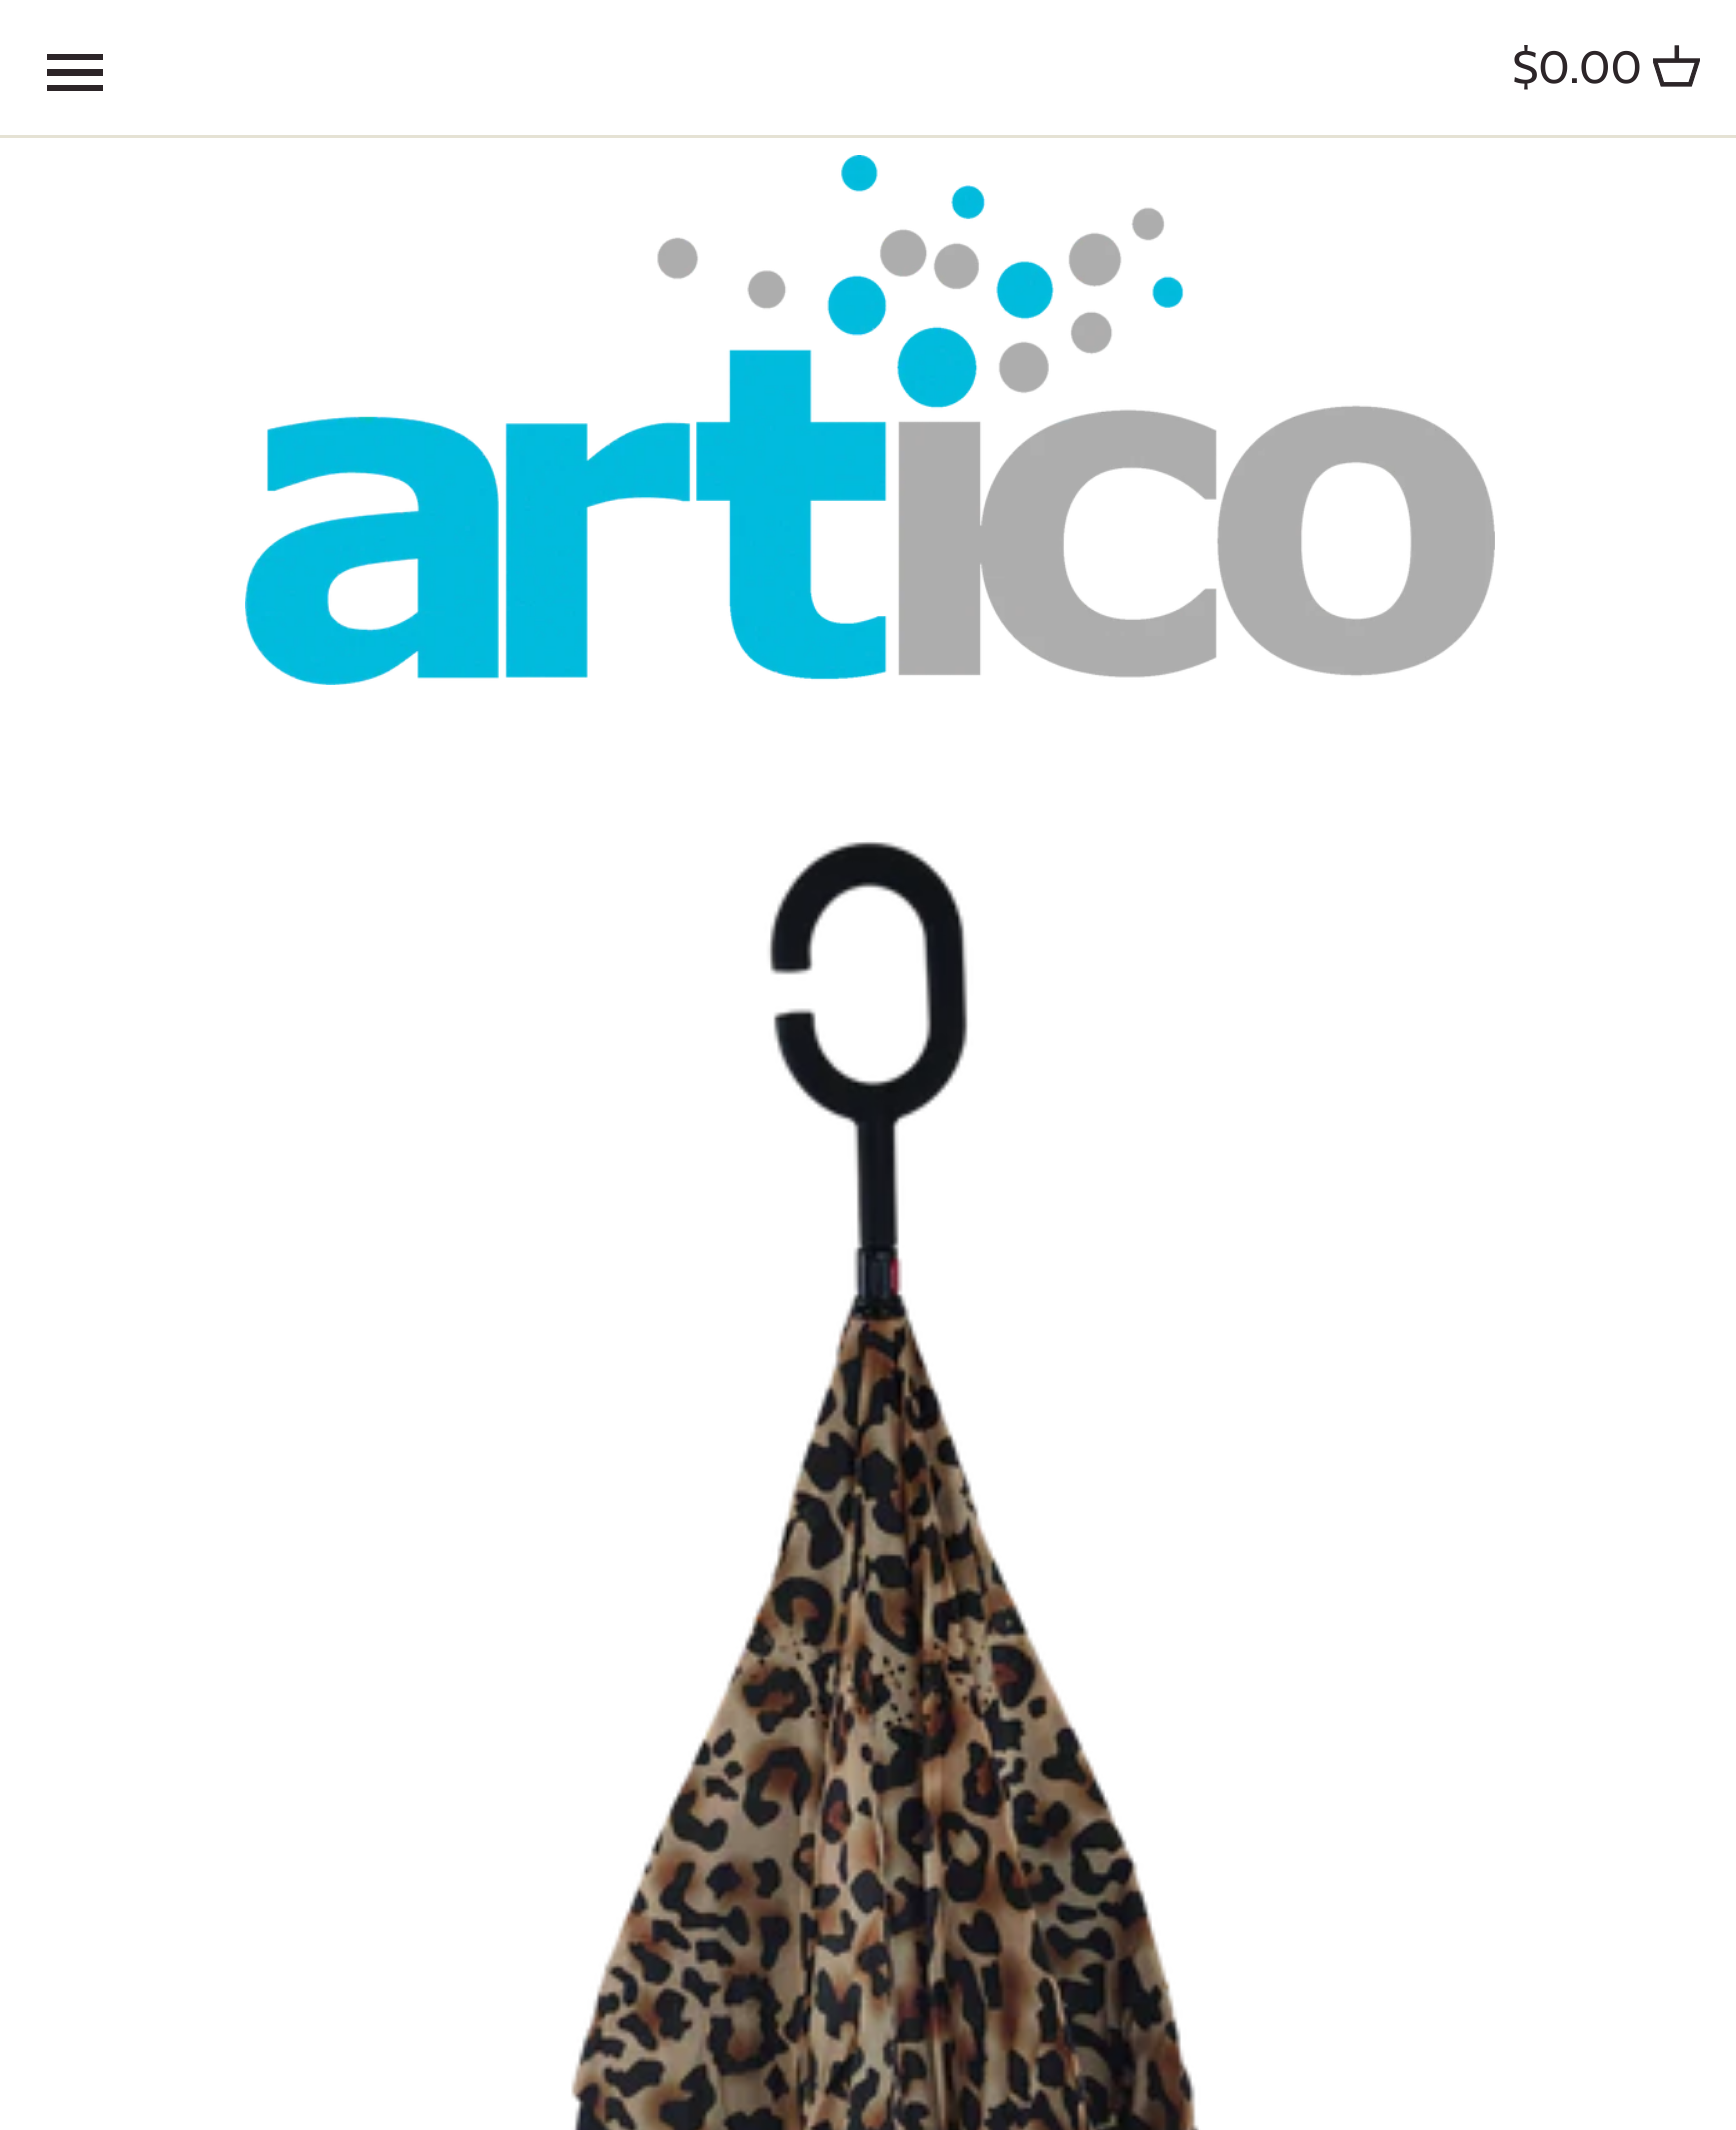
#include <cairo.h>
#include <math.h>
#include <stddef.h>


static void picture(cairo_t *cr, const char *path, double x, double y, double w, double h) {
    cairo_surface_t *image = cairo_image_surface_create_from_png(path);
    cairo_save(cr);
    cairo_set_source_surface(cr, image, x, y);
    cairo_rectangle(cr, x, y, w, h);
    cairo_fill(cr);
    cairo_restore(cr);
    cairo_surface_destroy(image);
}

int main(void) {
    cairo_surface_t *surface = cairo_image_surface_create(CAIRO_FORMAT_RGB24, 1736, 2130);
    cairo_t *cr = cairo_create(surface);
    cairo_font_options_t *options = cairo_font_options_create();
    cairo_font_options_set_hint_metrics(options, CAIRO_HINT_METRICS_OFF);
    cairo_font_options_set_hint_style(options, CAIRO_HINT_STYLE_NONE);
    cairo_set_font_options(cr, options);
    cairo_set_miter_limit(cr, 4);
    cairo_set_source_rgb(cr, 1, 1, 1);
    cairo_paint(cr);
    cairo_set_source_rgb(cr, 0.898, 0.886, 0.831);
    cairo_rectangle(cr, 0, 135, 1736, 3);
    cairo_fill(cr);
    cairo_set_source_rgb(cr, 0.173, 0.145, 0.157);
    cairo_new_path(cr);
    cairo_move_to(cr, 47, 91);
    cairo_line_to(cr, 103, 91);
    cairo_line_to(cr, 103, 85);
    cairo_line_to(cr, 47, 85);
    cairo_close_path(cr);
    cairo_move_to(cr, 47, 76);
    cairo_line_to(cr, 103, 76);
    cairo_line_to(cr, 103, 69);
    cairo_line_to(cr, 47, 69);
    cairo_close_path(cr);
    cairo_move_to(cr, 47, 54);
    cairo_line_to(cr, 47, 60);
    cairo_line_to(cr, 103, 60);
    cairo_line_to(cr, 103, 54);
    cairo_close_path(cr);
    cairo_fill(cr);
    cairo_select_font_face(cr, "Cabin", CAIRO_FONT_SLANT_NORMAL, CAIRO_FONT_WEIGHT_NORMAL);
    cairo_set_font_size(cr, 45);
    cairo_move_to(cr, 1512, 83);
    cairo_show_text(cr, "$0.00");
    picture(cr, "img1.png", 1653, 45, 47, 42);
    picture(cr, "img2.png", 245, 155, 1250, 530);
    picture(cr, "img3.png", 571, 840, 630, 1290);
    cairo_surface_write_to_png(surface, "page.png");
    cairo_font_options_destroy(options);
    cairo_destroy(cr);
    cairo_surface_destroy(surface);
    return 0;
}
